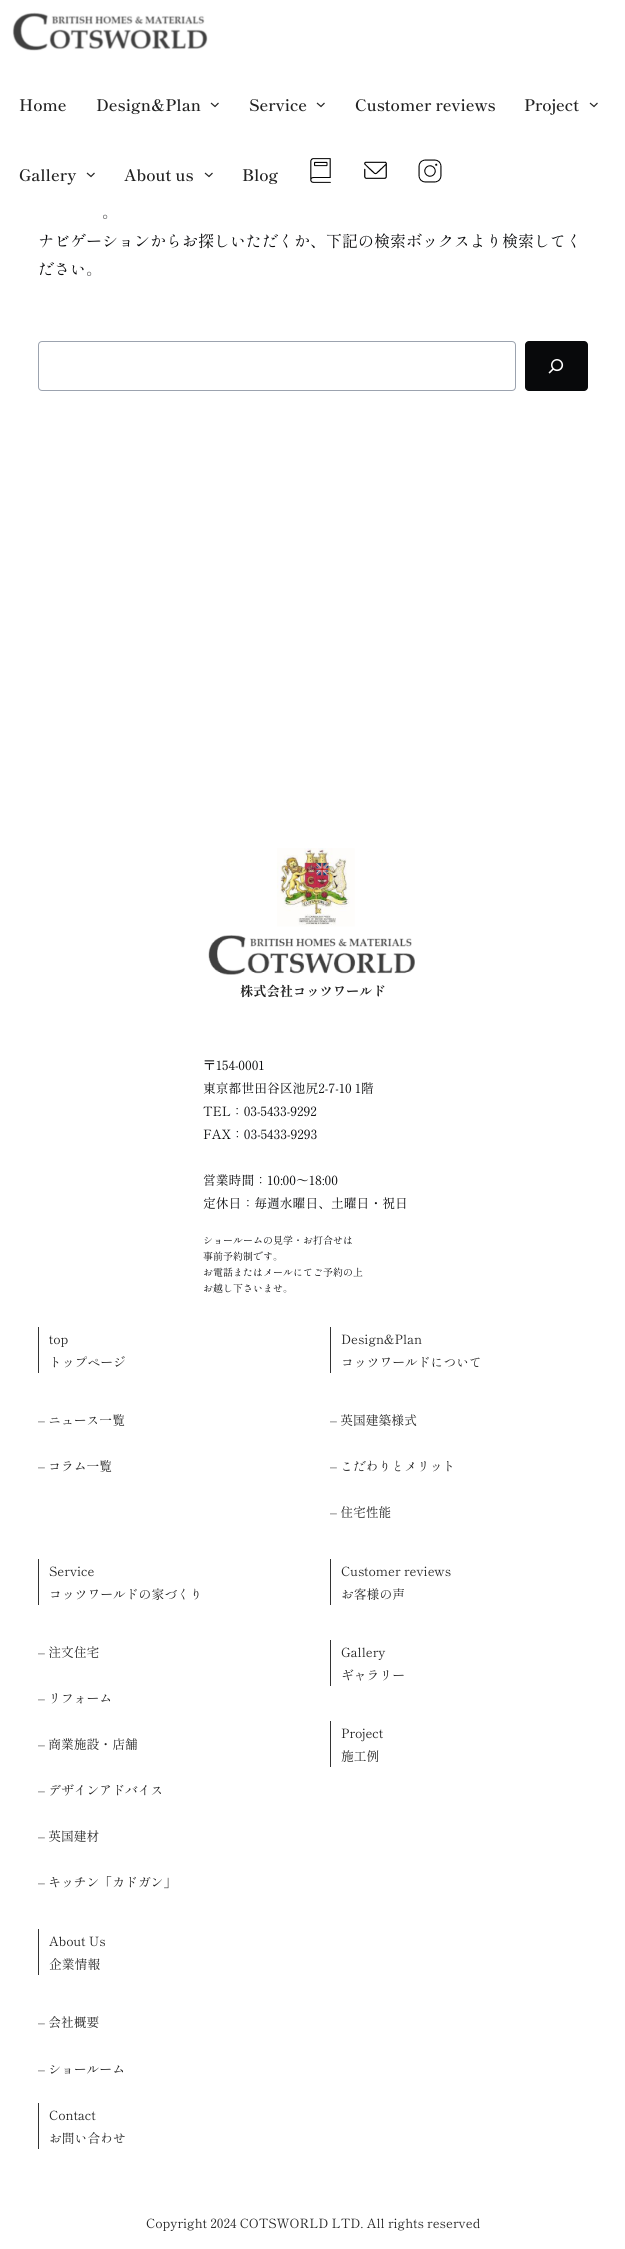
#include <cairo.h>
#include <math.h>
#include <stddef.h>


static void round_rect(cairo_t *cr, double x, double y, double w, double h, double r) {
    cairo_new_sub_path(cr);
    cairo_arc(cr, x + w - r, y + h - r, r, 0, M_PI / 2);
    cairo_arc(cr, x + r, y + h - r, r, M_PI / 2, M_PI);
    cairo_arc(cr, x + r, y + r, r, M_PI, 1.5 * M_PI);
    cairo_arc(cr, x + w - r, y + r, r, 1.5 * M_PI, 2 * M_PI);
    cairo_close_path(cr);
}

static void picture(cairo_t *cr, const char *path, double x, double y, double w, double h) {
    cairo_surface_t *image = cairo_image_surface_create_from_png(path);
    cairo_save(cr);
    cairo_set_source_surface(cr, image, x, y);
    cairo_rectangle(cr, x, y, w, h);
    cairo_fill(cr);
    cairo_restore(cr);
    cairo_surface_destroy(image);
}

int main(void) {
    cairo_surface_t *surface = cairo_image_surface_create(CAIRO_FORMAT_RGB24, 625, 2249);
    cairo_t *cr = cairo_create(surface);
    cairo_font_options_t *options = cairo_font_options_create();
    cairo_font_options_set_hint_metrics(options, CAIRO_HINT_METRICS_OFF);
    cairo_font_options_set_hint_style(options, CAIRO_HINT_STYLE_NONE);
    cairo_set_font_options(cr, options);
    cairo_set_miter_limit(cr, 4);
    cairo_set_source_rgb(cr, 1, 1, 1);
    cairo_paint(cr);
    picture(cr, "img1.png", 12, 12, 196, 39);
    cairo_select_font_face(cr, "Shippori Mincho SemiBold", CAIRO_FONT_SLANT_NORMAL, CAIRO_FONT_WEIGHT_NORMAL);
    cairo_set_font_size(cr, 16);
    cairo_set_source_rgb(cr, 0.133, 0.133, 0.133);
    cairo_move_to(cr, 19, 111);
    cairo_show_text(cr, "Home");
    cairo_move_to(cr, 96, 111);
    cairo_show_text(cr, "Design&Plan");
    cairo_new_path(cr);
    cairo_move_to(cr, 211, 103);
    cairo_line_to(cr, 215, 106.5);
    cairo_line_to(cr, 218.5, 103);
    cairo_set_line_width(cr, 1.2);
    cairo_stroke(cr);
    cairo_move_to(cr, 249, 111);
    cairo_show_text(cr, "Service");
    cairo_new_path(cr);
    cairo_move_to(cr, 317, 103);
    cairo_line_to(cr, 321, 106.5);
    cairo_line_to(cr, 324.5, 103);
    cairo_stroke(cr);
    cairo_move_to(cr, 355, 111);
    cairo_show_text(cr, "Customer reviews");
    cairo_move_to(cr, 524, 111);
    cairo_show_text(cr, "Project");
    cairo_new_path(cr);
    cairo_move_to(cr, 590, 103);
    cairo_line_to(cr, 594, 106.5);
    cairo_line_to(cr, 597.5, 103);
    cairo_stroke(cr);
    cairo_move_to(cr, 19, 181);
    cairo_show_text(cr, "Gallery");
    cairo_new_path(cr);
    cairo_move_to(cr, 87, 173);
    cairo_line_to(cr, 91, 176.5);
    cairo_line_to(cr, 94.5, 173);
    cairo_stroke(cr);
    cairo_move_to(cr, 124, 181);
    cairo_show_text(cr, "About us");
    cairo_new_path(cr);
    cairo_move_to(cr, 205, 173);
    cairo_line_to(cr, 209, 176.5);
    cairo_line_to(cr, 212.5, 173);
    cairo_stroke(cr);
    cairo_move_to(cr, 242, 181);
    cairo_show_text(cr, "Blog");
    picture(cr, "img2.png", 310, 158, 21, 25);
    picture(cr, "img3.png", 364, 161, 23, 18);
    picture(cr, "img4.png", 418, 159, 24, 24);
    cairo_select_font_face(cr, "Shippori Mincho", CAIRO_FONT_SLANT_NORMAL, CAIRO_FONT_WEIGHT_NORMAL);
    cairo_set_source_rgb(cr, 0.035, 0.039, 0.043);
    cairo_move_to(cr, 102, 218);
    cairo_show_text(cr, "。");
    cairo_move_to(cr, 38, 247);
    cairo_show_text(cr, "ナビゲーションからお探しいただくか、下記の検索ボックスより検索してく");
    cairo_move_to(cr, 38, 275);
    cairo_show_text(cr, "ださい。");
    round_rect(cr, 38.5, 341.5, 477, 49, 3.5);
    cairo_set_source_rgb(cr, 0.612, 0.639, 0.686);
    cairo_set_line_width(cr, 1);
    cairo_stroke(cr);
    cairo_set_source_rgb(cr, 0.035, 0.039, 0.043);
    round_rect(cr, 525, 341, 63, 50, 4);
    cairo_fill(cr);
    picture(cr, "img5.png", 548, 359, 16, 15);
    picture(cr, "img6.png", 208, 848, 207, 127);
    cairo_select_font_face(cr, "Shippori Mincho", CAIRO_FONT_SLANT_NORMAL, CAIRO_FONT_WEIGHT_BOLD);
    cairo_set_font_size(cr, 13.25);
    cairo_set_source_rgb(cr, 0.133, 0.133, 0.133);
    cairo_move_to(cr, 240, 996);
    cairo_show_text(cr, "株式会社コッツワールド");
    cairo_select_font_face(cr, "Shippori Mincho", CAIRO_FONT_SLANT_NORMAL, CAIRO_FONT_WEIGHT_NORMAL);
    cairo_set_font_size(cr, 12.8);
    cairo_set_source_rgb(cr, 0.035, 0.039, 0.043);
    cairo_move_to(cr, 203, 1070);
    cairo_show_text(cr, "〒154-0001");
    cairo_move_to(cr, 203, 1093);
    cairo_show_text(cr, "東京都世田谷区池尻2-7-10 1階");
    cairo_move_to(cr, 203, 1116);
    cairo_show_text(cr, "TEL：03-5433-9292");
    cairo_move_to(cr, 203, 1139);
    cairo_show_text(cr, "FAX：03-5433-9293");
    cairo_move_to(cr, 203, 1185);
    cairo_show_text(cr, "営業時間：10:00～18:00");
    cairo_move_to(cr, 203, 1208);
    cairo_show_text(cr, "定休日：毎週水曜日、土曜日・祝日");
    cairo_set_font_size(cr, 10);
    cairo_move_to(cr, 203, 1244);
    cairo_show_text(cr, "ショールームの見学・お打合せは");
    cairo_move_to(cr, 203, 1260);
    cairo_show_text(cr, "事前予約制です。");
    cairo_move_to(cr, 203, 1276);
    cairo_show_text(cr, "お電話またはメールにてご予約の上");
    cairo_move_to(cr, 203, 1292);
    cairo_show_text(cr, "お越し下さいませ。");
    cairo_set_source_rgb(cr, 0.2, 0.2, 0.2);
    cairo_rectangle(cr, 38, 1327, 1, 46);
    cairo_fill(cr);
    cairo_set_font_size(cr, 12.8);
    cairo_set_source_rgb(cr, 0.133, 0.133, 0.133);
    cairo_move_to(cr, 49, 1344);
    cairo_show_text(cr, "top");
    cairo_move_to(cr, 49, 1367);
    cairo_show_text(cr, "トップページ");
    cairo_move_to(cr, 38, 1425);
    cairo_show_text(cr, "– ニュース一覧");
    cairo_move_to(cr, 38, 1471);
    cairo_show_text(cr, "– コラム一覧");
    cairo_set_source_rgb(cr, 0.2, 0.2, 0.2);
    cairo_rectangle(cr, 330, 1327, 1, 46);
    cairo_fill(cr);
    cairo_set_source_rgb(cr, 0.133, 0.133, 0.133);
    cairo_move_to(cr, 341, 1344);
    cairo_show_text(cr, "Design&Plan");
    cairo_move_to(cr, 341, 1367);
    cairo_show_text(cr, "コッツワールドについて");
    cairo_move_to(cr, 330, 1425);
    cairo_show_text(cr, "– 英国建築様式");
    cairo_move_to(cr, 330, 1471);
    cairo_show_text(cr, "– こだわりとメリット");
    cairo_move_to(cr, 330, 1517);
    cairo_show_text(cr, "– 住宅性能");
    cairo_set_source_rgb(cr, 0.2, 0.2, 0.2);
    cairo_rectangle(cr, 38, 1559, 1, 46);
    cairo_fill(cr);
    cairo_set_source_rgb(cr, 0.133, 0.133, 0.133);
    cairo_move_to(cr, 49, 1576);
    cairo_show_text(cr, "Service");
    cairo_move_to(cr, 49, 1599);
    cairo_show_text(cr, "コッツワールドの家づくり");
    cairo_move_to(cr, 38, 1657);
    cairo_show_text(cr, "– 注文住宅");
    cairo_move_to(cr, 38, 1703);
    cairo_show_text(cr, "– リフォーム");
    cairo_move_to(cr, 38, 1749);
    cairo_show_text(cr, "– 商業施設・店舗");
    cairo_move_to(cr, 38, 1795);
    cairo_show_text(cr, "– デザインアドバイス");
    cairo_move_to(cr, 38, 1841);
    cairo_show_text(cr, "– 英国建材");
    cairo_move_to(cr, 38, 1887);
    cairo_show_text(cr, "– キッチン「カドガン」");
    cairo_set_source_rgb(cr, 0.2, 0.2, 0.2);
    cairo_rectangle(cr, 330, 1559, 1, 46);
    cairo_fill(cr);
    cairo_set_source_rgb(cr, 0.133, 0.133, 0.133);
    cairo_move_to(cr, 341, 1576);
    cairo_show_text(cr, "Customer reviews");
    cairo_move_to(cr, 341, 1599);
    cairo_show_text(cr, "お客様の声");
    cairo_set_source_rgb(cr, 0.2, 0.2, 0.2);
    cairo_rectangle(cr, 330, 1640, 1, 46);
    cairo_fill(cr);
    cairo_set_source_rgb(cr, 0.133, 0.133, 0.133);
    cairo_move_to(cr, 341, 1657);
    cairo_show_text(cr, "Gallery");
    cairo_move_to(cr, 341, 1680);
    cairo_show_text(cr, "ギャラリー");
    cairo_set_source_rgb(cr, 0.2, 0.2, 0.2);
    cairo_rectangle(cr, 330, 1721, 1, 46);
    cairo_fill(cr);
    cairo_set_source_rgb(cr, 0.133, 0.133, 0.133);
    cairo_move_to(cr, 341, 1738);
    cairo_show_text(cr, "Project");
    cairo_move_to(cr, 341, 1761);
    cairo_show_text(cr, "施工例");
    cairo_set_source_rgb(cr, 0.2, 0.2, 0.2);
    cairo_rectangle(cr, 38, 1929, 1, 46);
    cairo_fill(cr);
    cairo_set_source_rgb(cr, 0.133, 0.133, 0.133);
    cairo_move_to(cr, 49, 1946);
    cairo_show_text(cr, "About Us");
    cairo_move_to(cr, 49, 1969);
    cairo_show_text(cr, "企業情報");
    cairo_move_to(cr, 38, 2027);
    cairo_show_text(cr, "– 会社概要");
    cairo_move_to(cr, 38, 2074);
    cairo_show_text(cr, "– ショールーム");
    cairo_set_source_rgb(cr, 0.2, 0.2, 0.2);
    cairo_rectangle(cr, 38, 2103, 1, 46);
    cairo_fill(cr);
    cairo_set_source_rgb(cr, 0.133, 0.133, 0.133);
    cairo_move_to(cr, 49, 2120);
    cairo_show_text(cr, "Contact");
    cairo_move_to(cr, 49, 2143);
    cairo_show_text(cr, "お問い合わせ");
    cairo_move_to(cr, 146, 2228);
    cairo_show_text(cr, "Copyright 2024 COTSWORLD LTD. All rights reserved");
    cairo_surface_write_to_png(surface, "page.png");
    cairo_font_options_destroy(options);
    cairo_destroy(cr);
    cairo_surface_destroy(surface);
    return 0;
}
